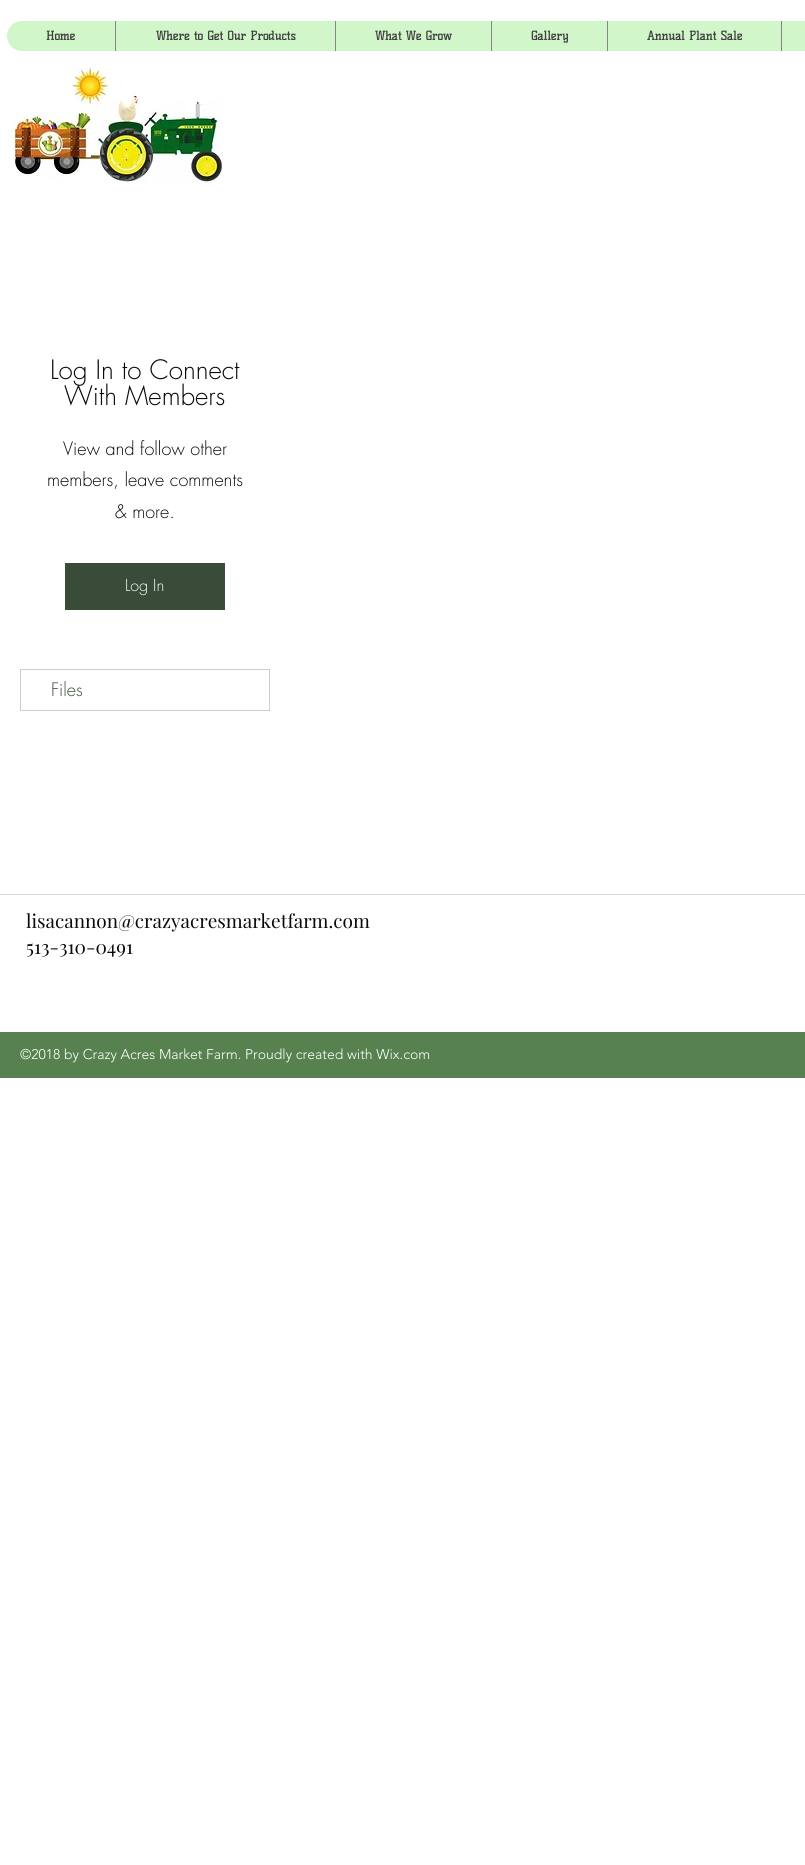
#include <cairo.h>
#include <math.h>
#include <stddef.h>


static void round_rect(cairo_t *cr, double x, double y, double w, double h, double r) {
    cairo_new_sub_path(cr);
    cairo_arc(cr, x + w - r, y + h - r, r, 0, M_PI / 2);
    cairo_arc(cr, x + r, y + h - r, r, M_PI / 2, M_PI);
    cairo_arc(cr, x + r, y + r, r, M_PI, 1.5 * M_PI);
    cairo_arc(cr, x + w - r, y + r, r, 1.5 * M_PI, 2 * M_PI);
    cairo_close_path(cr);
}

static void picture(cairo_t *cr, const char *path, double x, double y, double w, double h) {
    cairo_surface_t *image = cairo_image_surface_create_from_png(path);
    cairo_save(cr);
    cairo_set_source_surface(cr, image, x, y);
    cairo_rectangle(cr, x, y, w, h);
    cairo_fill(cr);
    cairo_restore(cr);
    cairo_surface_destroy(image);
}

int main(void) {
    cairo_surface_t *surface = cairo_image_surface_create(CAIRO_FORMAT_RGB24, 805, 1865);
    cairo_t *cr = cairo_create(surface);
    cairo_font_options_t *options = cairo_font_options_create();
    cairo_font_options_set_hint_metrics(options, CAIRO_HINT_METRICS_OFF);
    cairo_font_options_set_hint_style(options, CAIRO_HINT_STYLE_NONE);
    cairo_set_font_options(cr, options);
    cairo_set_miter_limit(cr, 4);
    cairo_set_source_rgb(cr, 1, 1, 1);
    cairo_paint(cr);
    cairo_set_source_rgb(cr, 0.82, 0.961, 0.788);
    round_rect(cr, 7, 21, 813, 30, 15);
    cairo_fill(cr);
    cairo_select_font_face(cr, "Kelly Slab", CAIRO_FONT_SLANT_NORMAL, CAIRO_FONT_WEIGHT_BOLD);
    cairo_set_font_size(cr, 12);
    cairo_set_source_rgb(cr, 0.255, 0.255, 0.255);
    cairo_move_to(cr, 46, 40);
    cairo_show_text(cr, "Home");
    cairo_set_source_rgb(cr, 0.522, 0.522, 0.522);
    cairo_rectangle(cr, 115, 21, 1, 30);
    cairo_fill(cr);
    cairo_set_source_rgb(cr, 0.255, 0.255, 0.255);
    cairo_move_to(cr, 156, 40);
    cairo_show_text(cr, "Where to Get Our Products");
    cairo_set_source_rgb(cr, 0.522, 0.522, 0.522);
    cairo_rectangle(cr, 335, 21, 1, 30);
    cairo_fill(cr);
    cairo_set_source_rgb(cr, 0.255, 0.255, 0.255);
    cairo_move_to(cr, 375, 40);
    cairo_show_text(cr, "What We Grow");
    cairo_set_source_rgb(cr, 0.522, 0.522, 0.522);
    cairo_rectangle(cr, 491, 21, 1, 30);
    cairo_fill(cr);
    cairo_set_source_rgb(cr, 0.255, 0.255, 0.255);
    cairo_move_to(cr, 531, 40);
    cairo_show_text(cr, "Gallery");
    cairo_set_source_rgb(cr, 0.522, 0.522, 0.522);
    cairo_rectangle(cr, 607, 21, 1, 30);
    cairo_fill(cr);
    cairo_set_source_rgb(cr, 0.255, 0.255, 0.255);
    cairo_move_to(cr, 647, 40);
    cairo_show_text(cr, "Annual Plant Sale");
    cairo_set_source_rgb(cr, 0.522, 0.522, 0.522);
    cairo_rectangle(cr, 781, 21, 1, 30);
    cairo_fill(cr);
    picture(cr, "img1.png", 11, 68, 212, 115);
    cairo_select_font_face(cr, "futura Light", CAIRO_FONT_SLANT_NORMAL, CAIRO_FONT_WEIGHT_NORMAL);
    cairo_set_font_size(cr, 26);
    cairo_set_source_rgb(cr, 0.035, 0.039, 0.035);
    cairo_move_to(cr, 50, 379);
    cairo_show_text(cr, "Log In to Connect");
    cairo_move_to(cr, 64, 405);
    cairo_show_text(cr, "With Members");
    cairo_set_font_size(cr, 18);
    cairo_move_to(cr, 63, 455);
    cairo_show_text(cr, "View and follow other");
    cairo_move_to(cr, 47, 486);
    cairo_show_text(cr, "members, leave comments");
    cairo_move_to(cr, 115, 518);
    cairo_show_text(cr, "& more.");
    cairo_set_source_rgb(cr, 0.224, 0.298, 0.224);
    cairo_rectangle(cr, 65, 563, 160, 47);
    cairo_fill(cr);
    cairo_set_font_size(cr, 16);
    cairo_set_source_rgb(cr, 1, 1, 1);
    cairo_move_to(cr, 125, 591);
    cairo_show_text(cr, "Log In");
    cairo_rectangle(cr, 20.5, 669.5, 249, 41);
    cairo_set_source_rgb(cr, 0.808, 0.808, 0.808);
    cairo_set_line_width(cr, 1);
    cairo_stroke(cr);
    cairo_set_font_size(cr, 18);
    cairo_set_source_rgb(cr, 0.224, 0.298, 0.224);
    cairo_move_to(cr, 51, 696);
    cairo_show_text(cr, "Files");
    cairo_set_source_rgb(cr, 0.855, 0.855, 0.855);
    cairo_rectangle(cr, 0, 894, 805, 1);
    cairo_fill(cr);
    cairo_select_font_face(cr, "Playfair Display", CAIRO_FONT_SLANT_NORMAL, CAIRO_FONT_WEIGHT_NORMAL);
    cairo_set_font_size(cr, 19);
    cairo_set_source_rgb(cr, 0.035, 0.039, 0.035);
    cairo_move_to(cr, 26, 928);
    cairo_show_text(cr, "lisacannon@crazyacresmarketfarm.com");
    cairo_move_to(cr, 26, 954);
    cairo_show_text(cr, "513-310-0491");
    cairo_set_source_rgb(cr, 0.341, 0.51, 0.314);
    cairo_rectangle(cr, 0, 1032, 805, 46);
    cairo_fill(cr);
    cairo_select_font_face(cr, "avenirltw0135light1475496 Light", CAIRO_FONT_SLANT_NORMAL, CAIRO_FONT_WEIGHT_NORMAL);
    cairo_set_font_size(cr, 14);
    cairo_set_source_rgb(cr, 1, 1, 1);
    cairo_move_to(cr, 20, 1059);
    cairo_show_text(cr, "©2018 by Crazy Acres Market Farm. Proudly created with Wix.com");
    cairo_surface_write_to_png(surface, "page.png");
    cairo_font_options_destroy(options);
    cairo_destroy(cr);
    cairo_surface_destroy(surface);
    return 0;
}
